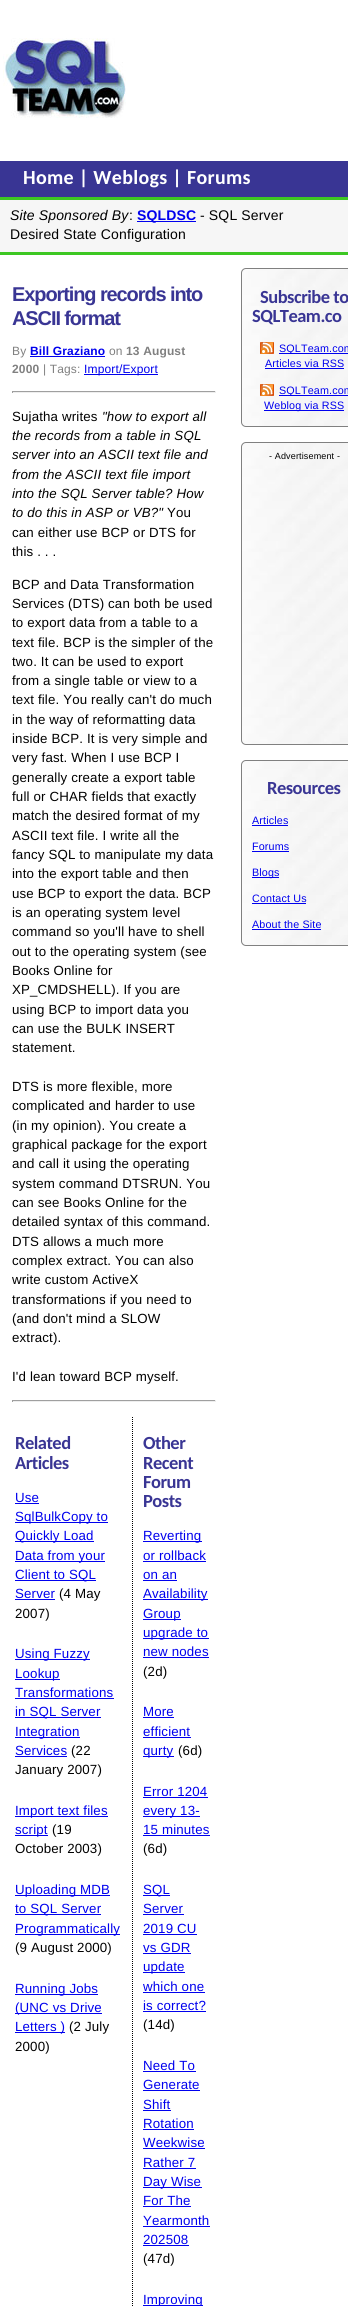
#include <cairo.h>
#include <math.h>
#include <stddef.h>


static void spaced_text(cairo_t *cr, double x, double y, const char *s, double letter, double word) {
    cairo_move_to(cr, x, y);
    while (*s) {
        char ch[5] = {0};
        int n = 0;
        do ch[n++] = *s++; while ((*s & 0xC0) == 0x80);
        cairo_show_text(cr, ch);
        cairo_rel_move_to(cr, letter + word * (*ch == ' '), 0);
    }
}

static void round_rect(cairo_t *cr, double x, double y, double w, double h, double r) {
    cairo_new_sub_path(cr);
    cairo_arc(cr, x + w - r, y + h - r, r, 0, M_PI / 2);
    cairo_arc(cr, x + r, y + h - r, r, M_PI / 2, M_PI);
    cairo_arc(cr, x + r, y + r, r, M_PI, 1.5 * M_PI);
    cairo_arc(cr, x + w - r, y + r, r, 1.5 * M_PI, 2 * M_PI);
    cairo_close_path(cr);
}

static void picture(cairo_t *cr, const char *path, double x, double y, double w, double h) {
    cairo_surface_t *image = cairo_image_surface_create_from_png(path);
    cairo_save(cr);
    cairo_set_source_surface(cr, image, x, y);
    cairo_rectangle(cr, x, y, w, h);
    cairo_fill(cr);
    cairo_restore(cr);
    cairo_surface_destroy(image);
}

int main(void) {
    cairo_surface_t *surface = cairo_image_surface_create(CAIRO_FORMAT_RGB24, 348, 2306);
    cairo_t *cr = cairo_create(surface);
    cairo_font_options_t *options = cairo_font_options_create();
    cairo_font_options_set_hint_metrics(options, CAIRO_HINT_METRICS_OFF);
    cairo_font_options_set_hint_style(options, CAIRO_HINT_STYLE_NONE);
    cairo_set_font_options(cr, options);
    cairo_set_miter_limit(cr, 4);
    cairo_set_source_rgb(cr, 1, 1, 1);
    cairo_paint(cr);
    picture(cr, "img1.png", 3, 38, 123, 80);
    cairo_set_source_rgb(cr, 0.224, 0.208, 0.58);
    cairo_rectangle(cr, 0, 161, 348, 36);
    cairo_fill(cr);
    cairo_select_font_face(cr, "Carlito", CAIRO_FONT_SLANT_NORMAL, CAIRO_FONT_WEIGHT_BOLD);
    cairo_set_font_size(cr, 20);
    cairo_set_source_rgb(cr, 1, 1, 1);
    spaced_text(cr, 23, 184, "Home | Weblogs | Forums", 0.3, 0);
    cairo_set_source_rgb(cr, 0.961, 0.961, 0.961);
    cairo_rectangle(cr, 0, 200, 348, 52);
    cairo_fill(cr);
    cairo_set_source_rgb(cr, 0.239, 0.78, 0.137);
    cairo_rectangle(cr, 0, 197, 348, 3);
    cairo_fill(cr);
    cairo_rectangle(cr, 0, 252, 348, 3);
    cairo_fill(cr);
    cairo_select_font_face(cr, "Liberation Sans", CAIRO_FONT_SLANT_ITALIC, CAIRO_FONT_WEIGHT_NORMAL);
    cairo_set_font_size(cr, 14);
    cairo_set_source_rgb(cr, 0, 0, 0);
    spaced_text(cr, 10, 220, "Site Sponsored By", 0.15, 0);
    cairo_select_font_face(cr, "Liberation Sans", CAIRO_FONT_SLANT_NORMAL, CAIRO_FONT_WEIGHT_NORMAL);
    spaced_text(cr, 129, 220, ":", 0.15, 0);
    cairo_set_source_rgb(cr, 0, 0, 0.933);
    cairo_rectangle(cr, 137, 221, 59, 1);
    cairo_fill(cr);
    cairo_select_font_face(cr, "Liberation Sans", CAIRO_FONT_SLANT_NORMAL, CAIRO_FONT_WEIGHT_BOLD);
    spaced_text(cr, 137, 220, "SQLDSC", 0.15, 0);
    cairo_select_font_face(cr, "Liberation Sans", CAIRO_FONT_SLANT_NORMAL, CAIRO_FONT_WEIGHT_NORMAL);
    cairo_set_source_rgb(cr, 0, 0, 0);
    spaced_text(cr, 200, 220, "- SQL Server", 0.15, 0);
    spaced_text(cr, 10, 239, "Desired State Configuration", 0.15, 0);
    cairo_select_font_face(cr, "Liberation Sans", CAIRO_FONT_SLANT_NORMAL, CAIRO_FONT_WEIGHT_BOLD);
    cairo_set_font_size(cr, 20);
    cairo_set_source_rgb(cr, 0.224, 0.208, 0.58);
    spaced_text(cr, 12, 301, "Exporting records into", -1.1, 0);
    spaced_text(cr, 12, 325, "ASCII format", -1.1, 0);
    cairo_select_font_face(cr, "Liberation Sans", CAIRO_FONT_SLANT_NORMAL, CAIRO_FONT_WEIGHT_NORMAL);
    cairo_set_font_size(cr, 12);
    cairo_set_source_rgb(cr, 0.502, 0.502, 0.502);
    spaced_text(cr, 12, 355, "By", 0.15, 0);
    cairo_select_font_face(cr, "Liberation Sans", CAIRO_FONT_SLANT_NORMAL, CAIRO_FONT_WEIGHT_BOLD);
    cairo_set_source_rgb(cr, 0, 0, 0.933);
    spaced_text(cr, 30, 355, "Bill Graziano", 0.15, 0);
    cairo_rectangle(cr, 30, 356, 75, 1);
    cairo_fill(cr);
    cairo_select_font_face(cr, "Liberation Sans", CAIRO_FONT_SLANT_NORMAL, CAIRO_FONT_WEIGHT_NORMAL);
    cairo_set_source_rgb(cr, 0.502, 0.502, 0.502);
    spaced_text(cr, 109, 355, "on", 0.15, 0);
    cairo_select_font_face(cr, "Liberation Sans", CAIRO_FONT_SLANT_NORMAL, CAIRO_FONT_WEIGHT_BOLD);
    spaced_text(cr, 126, 355, "13 August", 0.15, 0);
    spaced_text(cr, 12, 373, "2000", 0.15, 0);
    cairo_select_font_face(cr, "Liberation Sans", CAIRO_FONT_SLANT_NORMAL, CAIRO_FONT_WEIGHT_NORMAL);
    spaced_text(cr, 43, 373, "| Tags:", 0.15, 0);
    cairo_set_source_rgb(cr, 0, 0, 0.933);
    cairo_rectangle(cr, 84, 374, 74, 1);
    cairo_fill(cr);
    spaced_text(cr, 84, 373, "Import/Export", 0.15, 0);
    cairo_set_source_rgb(cr, 0.624, 0.624, 0.624);
    cairo_rectangle(cr, 12, 391, 204, 1);
    cairo_fill(cr);
    cairo_set_source_rgb(cr, 0.933, 0.933, 0.933);
    cairo_rectangle(cr, 215, 391, 1, 2);
    cairo_fill(cr);
    cairo_rectangle(cr, 12, 392, 204, 1);
    cairo_fill(cr);
    cairo_set_source_rgb(cr, 0.624, 0.624, 0.624);
    cairo_rectangle(cr, 12, 391, 1, 2);
    cairo_fill(cr);
    cairo_set_font_size(cr, 13.3);
    cairo_set_source_rgb(cr, 0, 0, 0);
    spaced_text(cr, 12, 421, "Sujatha writes", 0.15, 0);
    cairo_select_font_face(cr, "Liberation Sans", CAIRO_FONT_SLANT_ITALIC, CAIRO_FONT_WEIGHT_NORMAL);
    spaced_text(cr, 102, 421, "\"how to export all", 0.15, 0);
    spaced_text(cr, 12, 440, "the records from a table in SQL", 0.15, 0);
    spaced_text(cr, 12, 459, "server into an ASCII text file and", 0.15, 0);
    spaced_text(cr, 12, 479, "from the ASCII text file import", 0.15, 0);
    spaced_text(cr, 12, 498, "into the SQL Server table? How", 0.15, 0);
    spaced_text(cr, 12, 517, "to do this in ASP or VB?\"", 0.15, 0);
    cairo_select_font_face(cr, "Liberation Sans", CAIRO_FONT_SLANT_NORMAL, CAIRO_FONT_WEIGHT_NORMAL);
    spaced_text(cr, 167, 517, "You", 0.15, 0);
    spaced_text(cr, 12, 537, "can either use BCP or DTS for", 0.15, 0);
    spaced_text(cr, 12, 556, "this . . .", 0.15, 0);
    spaced_text(cr, 12, 589, "BCP and Data Transformation", 0.15, 0);
    spaced_text(cr, 12, 608, "Services (DTS) can both be used", 0.15, 0);
    spaced_text(cr, 12, 627, "to export data from a table to a", 0.15, 0);
    spaced_text(cr, 12, 647, "text file. BCP is the simpler of the", 0.15, 0);
    spaced_text(cr, 12, 666, "two. It can be used to export", 0.15, 0);
    spaced_text(cr, 12, 685, "from a single table or view to a", 0.15, 0);
    spaced_text(cr, 12, 704, "text file. You really can't do much", 0.15, 0);
    spaced_text(cr, 12, 724, "in the way of reformatting data", 0.15, 0);
    spaced_text(cr, 12, 743, "inside BCP. It is very simple and", 0.15, 0);
    spaced_text(cr, 12, 762, "very fast. When I use BCP I", 0.15, 0);
    spaced_text(cr, 12, 782, "generally create a export table", 0.15, 0);
    spaced_text(cr, 12, 801, "full or CHAR fields that exactly", 0.15, 0);
    spaced_text(cr, 12, 820, "match the desired format of my", 0.15, 0);
    spaced_text(cr, 12, 840, "ASCII text file. I write all the", 0.15, 0);
    spaced_text(cr, 12, 859, "fancy SQL to manipulate my data", 0.15, 0);
    spaced_text(cr, 12, 878, "into the export table and then", 0.15, 0);
    spaced_text(cr, 12, 898, "use BCP to export the data. BCP", 0.15, 0);
    spaced_text(cr, 12, 917, "is an operating system level", 0.15, 0);
    spaced_text(cr, 12, 936, "command so you'll have to shell", 0.15, 0);
    spaced_text(cr, 12, 956, "out to the operating system (see", 0.15, 0);
    spaced_text(cr, 12, 975, "Books Online for", 0.15, 0);
    spaced_text(cr, 12, 994, "XP_CMDSHELL). If you are", 0.15, 0);
    spaced_text(cr, 12, 1014, "using BCP to import data you", 0.15, 0);
    spaced_text(cr, 12, 1033, "can use the BULK INSERT", 0.15, 0);
    spaced_text(cr, 12, 1052, "statement.", 0.15, 0);
    spaced_text(cr, 12, 1091, "DTS is more flexible, more", 0.15, 0);
    spaced_text(cr, 12, 1110, "complicated and harder to use", 0.15, 0);
    spaced_text(cr, 12, 1130, "(in my opinion). You create a", 0.15, 0);
    spaced_text(cr, 12, 1149, "graphical package for the export", 0.15, 0);
    spaced_text(cr, 12, 1168, "and call it using the operating", 0.15, 0);
    spaced_text(cr, 12, 1188, "system command DTSRUN. You", 0.15, 0);
    spaced_text(cr, 12, 1207, "can see Books Online for the", 0.15, 0);
    spaced_text(cr, 12, 1226, "detailed syntax of this command.", 0.15, 0);
    spaced_text(cr, 12, 1246, "DTS allows a much more", 0.15, 0);
    spaced_text(cr, 12, 1265, "complex extract. You can also", 0.15, 0);
    spaced_text(cr, 12, 1284, "write custom ActiveX", 0.15, 0);
    spaced_text(cr, 12, 1304, "transformations if you need to", 0.15, 0);
    spaced_text(cr, 12, 1323, "(and don't mind a SLOW", 0.15, 0);
    spaced_text(cr, 12, 1342, "extract).", 0.15, 0);
    spaced_text(cr, 12, 1381, "I'd lean toward BCP myself.", 0.15, 0);
    cairo_set_source_rgb(cr, 0.624, 0.624, 0.624);
    cairo_rectangle(cr, 12, 1400, 204, 1);
    cairo_fill(cr);
    cairo_set_source_rgb(cr, 0.933, 0.933, 0.933);
    cairo_rectangle(cr, 215, 1400, 1, 2);
    cairo_fill(cr);
    cairo_rectangle(cr, 12, 1401, 204, 1);
    cairo_fill(cr);
    cairo_set_source_rgb(cr, 0.624, 0.624, 0.624);
    cairo_rectangle(cr, 12, 1400, 1, 2);
    cairo_fill(cr);
    cairo_select_font_face(cr, "Carlito", CAIRO_FONT_SLANT_NORMAL, CAIRO_FONT_WEIGHT_BOLD);
    cairo_set_font_size(cr, 18.5);
    cairo_set_source_rgb(cr, 0.224, 0.208, 0.58);
    spaced_text(cr, 15, 1449, "Related", -0.5, 0);
    spaced_text(cr, 15, 1469, "Articles", -0.5, 0);
    cairo_select_font_face(cr, "Liberation Sans", CAIRO_FONT_SLANT_NORMAL, CAIRO_FONT_WEIGHT_NORMAL);
    cairo_set_font_size(cr, 13.3);
    cairo_set_source_rgb(cr, 0, 0, 0.933);
    spaced_text(cr, 15, 1502, "Use", 0.15, 0);
    cairo_rectangle(cr, 15, 1503, 24, 1);
    cairo_fill(cr);
    cairo_rectangle(cr, 15, 1522, 93, 1);
    cairo_fill(cr);
    spaced_text(cr, 15, 1521, "SqlBulkCopy to", 0.15, 0);
    cairo_rectangle(cr, 15, 1541, 79, 1);
    cairo_fill(cr);
    spaced_text(cr, 15, 1540, "Quickly Load", 0.15, 0);
    cairo_rectangle(cr, 15, 1561, 90, 1);
    cairo_fill(cr);
    spaced_text(cr, 15, 1560, "Data from your", 0.15, 0);
    cairo_rectangle(cr, 15, 1580, 81, 1);
    cairo_fill(cr);
    spaced_text(cr, 15, 1579, "Client to SQL", 0.15, 0);
    spaced_text(cr, 15, 1598, "Server", 0.15, 0);
    cairo_rectangle(cr, 15, 1599, 40, 1);
    cairo_fill(cr);
    cairo_set_source_rgb(cr, 0, 0, 0);
    spaced_text(cr, 59, 1598, "(4 May", 0.15, 0);
    spaced_text(cr, 15, 1618, "2007)", 0.15, 0);
    cairo_set_source_rgb(cr, 0, 0, 0.933);
    cairo_rectangle(cr, 15, 1659, 75, 1);
    cairo_fill(cr);
    spaced_text(cr, 15, 1658, "Using Fuzzy", 0.15, 0);
    cairo_rectangle(cr, 15, 1679, 45, 1);
    cairo_fill(cr);
    spaced_text(cr, 15, 1678, "Lookup", 0.15, 0);
    spaced_text(cr, 15, 1697, "Transformations", 0.15, 0);
    cairo_rectangle(cr, 15, 1698, 99, 1);
    cairo_fill(cr);
    cairo_rectangle(cr, 15, 1717, 86, 1);
    cairo_fill(cr);
    spaced_text(cr, 15, 1716, "in SQL Server", 0.15, 0);
    cairo_rectangle(cr, 15, 1737, 65, 1);
    cairo_fill(cr);
    spaced_text(cr, 15, 1736, "Integration", 0.15, 0);
    spaced_text(cr, 15, 1755, "Services", 0.15, 0);
    cairo_rectangle(cr, 15, 1756, 52, 1);
    cairo_fill(cr);
    cairo_set_source_rgb(cr, 0, 0, 0);
    spaced_text(cr, 71, 1755, "(22", 0.15, 0);
    spaced_text(cr, 15, 1774, "January 2007)", 0.15, 0);
    cairo_set_source_rgb(cr, 0, 0, 0.933);
    cairo_rectangle(cr, 15, 1816, 93, 1);
    cairo_fill(cr);
    spaced_text(cr, 15, 1815, "Import text files", 0.15, 0);
    cairo_rectangle(cr, 15, 1835, 33, 1);
    cairo_fill(cr);
    spaced_text(cr, 15, 1834, "script", 0.15, 0);
    cairo_set_source_rgb(cr, 0, 0, 0);
    spaced_text(cr, 52, 1834, "(19", 0.15, 0);
    spaced_text(cr, 15, 1853, "October 2003)", 0.15, 0);
    cairo_set_source_rgb(cr, 0, 0, 0.933);
    cairo_rectangle(cr, 15, 1895, 95, 1);
    cairo_fill(cr);
    spaced_text(cr, 15, 1894, "Uploading MDB", 0.15, 0);
    cairo_rectangle(cr, 15, 1914, 86, 1);
    cairo_fill(cr);
    spaced_text(cr, 15, 1913, "to SQL Server", 0.15, 0);
    cairo_rectangle(cr, 15, 1934, 105, 1);
    cairo_fill(cr);
    spaced_text(cr, 15, 1933, "Programmatically", 0.15, 0);
    cairo_set_source_rgb(cr, 0, 0, 0);
    spaced_text(cr, 15, 1952, "(9 August 2000)", 0.15, 0);
    cairo_set_source_rgb(cr, 0, 0, 0.933);
    cairo_rectangle(cr, 15, 1994, 83, 1);
    cairo_fill(cr);
    spaced_text(cr, 15, 1993, "Running Jobs", 0.15, 0);
    cairo_rectangle(cr, 15, 2013, 87, 1);
    cairo_fill(cr);
    spaced_text(cr, 15, 2012, "(UNC vs Drive", 0.15, 0);
    cairo_rectangle(cr, 15, 2032, 50, 1);
    cairo_fill(cr);
    spaced_text(cr, 15, 2031, "Letters )", 0.15, 0);
    cairo_set_source_rgb(cr, 0, 0, 0);
    spaced_text(cr, 69, 2031, "(2 July", 0.15, 0);
    spaced_text(cr, 15, 2051, "2000)", 0.15, 0);
    cairo_new_path(cr);
    cairo_move_to(cr, 132.5, 1417);
    cairo_line_to(cr, 132.5, 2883);
    cairo_set_line_width(cr, 1);
    cairo_set_dash(cr, (double[]){1, 1}, 2, 0);
    cairo_stroke(cr);
    cairo_select_font_face(cr, "Carlito", CAIRO_FONT_SLANT_NORMAL, CAIRO_FONT_WEIGHT_BOLD);
    cairo_set_font_size(cr, 18.5);
    cairo_set_source_rgb(cr, 0.224, 0.208, 0.58);
    spaced_text(cr, 143, 1449, "Other", -0.5, 0);
    spaced_text(cr, 143, 1469, "Recent", -0.5, 0);
    spaced_text(cr, 143, 1488, "Forum", -0.5, 0);
    spaced_text(cr, 143, 1507, "Posts", -0.5, 0);
    cairo_set_source_rgb(cr, 0, 0, 0.933);
    cairo_rectangle(cr, 143, 1541, 59, 1);
    cairo_fill(cr);
    cairo_select_font_face(cr, "Liberation Sans", CAIRO_FONT_SLANT_NORMAL, CAIRO_FONT_WEIGHT_NORMAL);
    cairo_set_font_size(cr, 13.3);
    spaced_text(cr, 143, 1540, "Reverting", 0.15, 0);
    spaced_text(cr, 143, 1560, "or rollback", 0.15, 0);
    cairo_rectangle(cr, 143, 1561, 63, 1);
    cairo_fill(cr);
    spaced_text(cr, 143, 1579, "on an", 0.15, 0);
    cairo_rectangle(cr, 143, 1580, 34, 1);
    cairo_fill(cr);
    cairo_rectangle(cr, 143, 1599, 65, 1);
    cairo_fill(cr);
    spaced_text(cr, 143, 1598, "Availability", 0.15, 0);
    cairo_rectangle(cr, 143, 1619, 38, 1);
    cairo_fill(cr);
    spaced_text(cr, 143, 1618, "Group", 0.15, 0);
    cairo_rectangle(cr, 143, 1638, 66, 1);
    cairo_fill(cr);
    spaced_text(cr, 143, 1637, "upgrade to", 0.15, 0);
    spaced_text(cr, 143, 1656, "new nodes", 0.15, 0);
    cairo_rectangle(cr, 143, 1657, 66, 1);
    cairo_fill(cr);
    cairo_set_source_rgb(cr, 0, 0, 0);
    spaced_text(cr, 143, 1676, "(2d)", 0.15, 0);
    cairo_set_source_rgb(cr, 0, 0, 0.933);
    spaced_text(cr, 143, 1716, "More", 0.15, 0);
    cairo_rectangle(cr, 143, 1717, 31, 1);
    cairo_fill(cr);
    spaced_text(cr, 143, 1736, "efficient", 0.15, 0);
    cairo_rectangle(cr, 143, 1737, 48, 1);
    cairo_fill(cr);
    cairo_rectangle(cr, 143, 1756, 31, 1);
    cairo_fill(cr);
    spaced_text(cr, 143, 1755, "qurty", 0.15, 0);
    cairo_set_source_rgb(cr, 0, 0, 0);
    spaced_text(cr, 178, 1755, "(6d)", 0.15, 0);
    cairo_set_source_rgb(cr, 0, 0, 0.933);
    spaced_text(cr, 143, 1796, "Error 1204", 0.15, 0);
    cairo_rectangle(cr, 143, 1797, 65, 1);
    cairo_fill(cr);
    cairo_rectangle(cr, 143, 1816, 57, 1);
    cairo_fill(cr);
    spaced_text(cr, 143, 1815, "every 13-", 0.15, 0);
    spaced_text(cr, 143, 1834, "15 minutes", 0.15, 0);
    cairo_rectangle(cr, 143, 1835, 67, 1);
    cairo_fill(cr);
    cairo_set_source_rgb(cr, 0, 0, 0);
    spaced_text(cr, 143, 1853, "(6d)", 0.15, 0);
    cairo_set_source_rgb(cr, 0, 0, 0.933);
    cairo_rectangle(cr, 143, 1895, 27, 1);
    cairo_fill(cr);
    spaced_text(cr, 143, 1894, "SQL", 0.15, 0);
    spaced_text(cr, 143, 1913, "Server", 0.15, 0);
    cairo_rectangle(cr, 143, 1914, 41, 1);
    cairo_fill(cr);
    spaced_text(cr, 143, 1933, "2019 CU", 0.15, 0);
    cairo_rectangle(cr, 143, 1934, 54, 1);
    cairo_fill(cr);
    spaced_text(cr, 143, 1952, "vs GDR", 0.15, 0);
    cairo_rectangle(cr, 143, 1953, 48, 1);
    cairo_fill(cr);
    cairo_rectangle(cr, 143, 1972, 42, 1);
    cairo_fill(cr);
    spaced_text(cr, 143, 1971, "update", 0.15, 0);
    spaced_text(cr, 143, 1991, "which one", 0.15, 0);
    cairo_rectangle(cr, 143, 1992, 62, 1);
    cairo_fill(cr);
    spaced_text(cr, 143, 2010, "is correct?", 0.15, 0);
    cairo_rectangle(cr, 143, 2011, 63, 1);
    cairo_fill(cr);
    cairo_set_source_rgb(cr, 0, 0, 0);
    spaced_text(cr, 143, 2029, "(14d)", 0.15, 0);
    cairo_set_source_rgb(cr, 0, 0, 0.933);
    spaced_text(cr, 143, 2070, "Need To", 0.15, 0);
    cairo_rectangle(cr, 143, 2071, 53, 1);
    cairo_fill(cr);
    spaced_text(cr, 143, 2089, "Generate", 0.15, 0);
    cairo_rectangle(cr, 143, 2090, 57, 1);
    cairo_fill(cr);
    spaced_text(cr, 143, 2109, "Shift", 0.15, 0);
    cairo_rectangle(cr, 143, 2110, 28, 1);
    cairo_fill(cr);
    spaced_text(cr, 143, 2128, "Rotation", 0.15, 0);
    cairo_rectangle(cr, 143, 2129, 51, 1);
    cairo_fill(cr);
    spaced_text(cr, 143, 2147, "Weekwise", 0.15, 0);
    cairo_rectangle(cr, 143, 2148, 62, 1);
    cairo_fill(cr);
    spaced_text(cr, 143, 2167, "Rather 7", 0.15, 0);
    cairo_rectangle(cr, 143, 2168, 53, 1);
    cairo_fill(cr);
    cairo_rectangle(cr, 143, 2187, 59, 1);
    cairo_fill(cr);
    spaced_text(cr, 143, 2186, "Day Wise", 0.15, 0);
    spaced_text(cr, 143, 2205, "For The", 0.15, 0);
    cairo_rectangle(cr, 143, 2206, 48, 1);
    cairo_fill(cr);
    spaced_text(cr, 143, 2225, "Yearmonth", 0.15, 0);
    cairo_rectangle(cr, 143, 2226, 67, 1);
    cairo_fill(cr);
    spaced_text(cr, 143, 2244, "202508", 0.15, 0);
    cairo_rectangle(cr, 143, 2245, 46, 1);
    cairo_fill(cr);
    cairo_set_source_rgb(cr, 0, 0, 0);
    spaced_text(cr, 143, 2263, "(47d)", 0.15, 0);
    cairo_set_source_rgb(cr, 0, 0, 0.933);
    cairo_rectangle(cr, 143, 2305, 60, 1);
    cairo_fill(cr);
    spaced_text(cr, 143, 2304, "Improving", 0.15, 0);
    picture(cr, "img2.png", 241, 268, 107, 159);
    round_rect(cr, 241.5, 268.5, 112, 158, 4.5);
    cairo_set_source_rgb(cr, 0.502, 0.502, 0.502);
    cairo_set_dash(cr, NULL, 0, 0);
    cairo_stroke(cr);
    cairo_select_font_face(cr, "Carlito", CAIRO_FONT_SLANT_NORMAL, CAIRO_FONT_WEIGHT_BOLD);
    cairo_set_font_size(cr, 18.5);
    cairo_set_source_rgb(cr, 0.224, 0.208, 0.58);
    spaced_text(cr, 260, 303, "Subscribe to", -0.5, 0);
    spaced_text(cr, 252, 322, "SQLTeam.co", -0.5, 0);
    picture(cr, "img3.png", 260, 342, 14, 12);
    cairo_set_source_rgb(cr, 0, 0, 0.933);
    cairo_rectangle(cr, 279, 353, 69, 1);
    cairo_fill(cr);
    cairo_select_font_face(cr, "Liberation Sans", CAIRO_FONT_SLANT_NORMAL, CAIRO_FONT_WEIGHT_NORMAL);
    cairo_set_font_size(cr, 10.75);
    spaced_text(cr, 279, 352, "SQLTeam.com", 0.15, 0);
    spaced_text(cr, 265, 367, "Articles via RSS", 0.15, 0);
    cairo_rectangle(cr, 265, 368, 79, 1);
    cairo_fill(cr);
    picture(cr, "img4.png", 260, 384, 14, 12);
    cairo_rectangle(cr, 279, 395, 69, 1);
    cairo_fill(cr);
    spaced_text(cr, 279, 394, "SQLTeam.com", 0.15, 0);
    cairo_rectangle(cr, 264, 410, 80, 1);
    cairo_fill(cr);
    spaced_text(cr, 264, 409, "Weblog via RSS", 0.15, 0);
    picture(cr, "img5.png", 241, 442, 107, 303);
    round_rect(cr, 241.5, 442.5, 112, 302, 4.5);
    cairo_set_source_rgb(cr, 0.502, 0.502, 0.502);
    cairo_stroke(cr);
    cairo_set_font_size(cr, 9);
    cairo_set_source_rgb(cr, 0, 0, 0);
    spaced_text(cr, 269, 459, "- Advertisement -", 0.15, 0);
    picture(cr, "img6.png", 241, 760, 107, 186);
    round_rect(cr, 241.5, 760.5, 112, 185, 4.5);
    cairo_set_source_rgb(cr, 0.502, 0.502, 0.502);
    cairo_stroke(cr);
    cairo_select_font_face(cr, "Carlito", CAIRO_FONT_SLANT_NORMAL, CAIRO_FONT_WEIGHT_BOLD);
    cairo_set_font_size(cr, 18.5);
    cairo_set_source_rgb(cr, 0.224, 0.208, 0.58);
    spaced_text(cr, 267, 794, "Resources", -0.5, 0);
    cairo_select_font_face(cr, "Liberation Sans", CAIRO_FONT_SLANT_NORMAL, CAIRO_FONT_WEIGHT_NORMAL);
    cairo_set_font_size(cr, 10.75);
    cairo_set_source_rgb(cr, 0, 0, 0.933);
    spaced_text(cr, 252, 824, "Articles", 0.15, 0);
    cairo_rectangle(cr, 252, 825, 36, 1);
    cairo_fill(cr);
    spaced_text(cr, 252, 850, "Forums", 0.15, 0);
    cairo_rectangle(cr, 252, 851, 37, 1);
    cairo_fill(cr);
    cairo_rectangle(cr, 252, 877, 27, 1);
    cairo_fill(cr);
    spaced_text(cr, 252, 876, "Blogs", 0.15, 0);
    spaced_text(cr, 252, 902, "Contact Us", 0.15, 0);
    cairo_rectangle(cr, 252, 903, 54, 1);
    cairo_fill(cr);
    spaced_text(cr, 252, 928, "About the Site", 0.15, 0);
    cairo_rectangle(cr, 252, 929, 69, 1);
    cairo_fill(cr);
    cairo_surface_write_to_png(surface, "page.png");
    cairo_font_options_destroy(options);
    cairo_destroy(cr);
    cairo_surface_destroy(surface);
    return 0;
}
